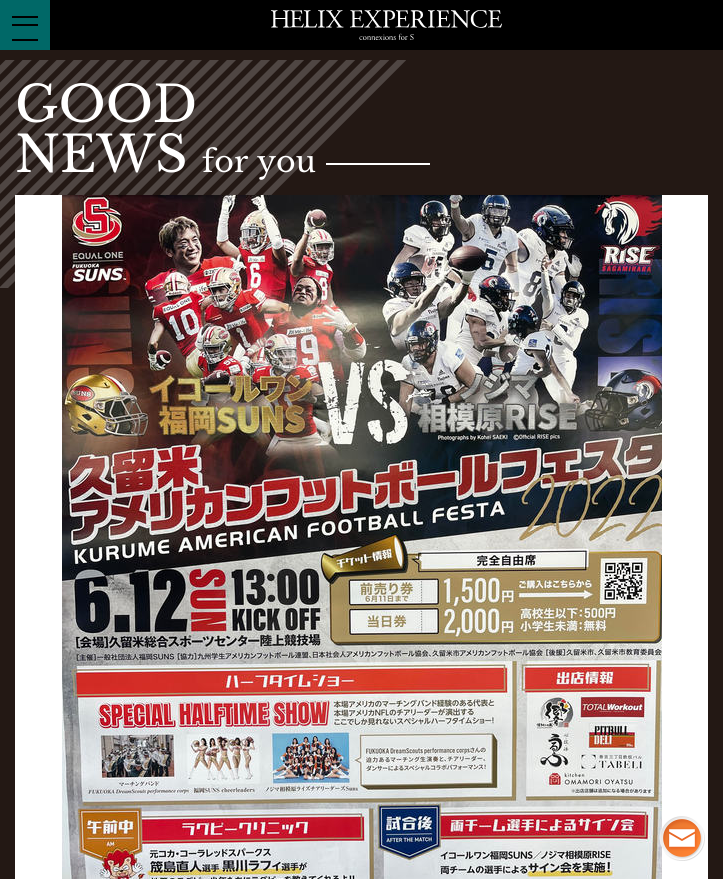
#include <cairo.h>
#include <math.h>
#include <stddef.h>


static void picture(cairo_t *cr, const char *path, double x, double y, double w, double h) {
    cairo_surface_t *image = cairo_image_surface_create_from_png(path);
    cairo_save(cr);
    cairo_set_source_surface(cr, image, x, y);
    cairo_rectangle(cr, x, y, w, h);
    cairo_fill(cr);
    cairo_restore(cr);
    cairo_surface_destroy(image);
}

int main(void) {
    cairo_surface_t *surface = cairo_image_surface_create(CAIRO_FORMAT_RGB24, 723, 879);
    cairo_t *cr = cairo_create(surface);
    cairo_font_options_t *options = cairo_font_options_create();
    cairo_font_options_set_hint_metrics(options, CAIRO_HINT_METRICS_OFF);
    cairo_font_options_set_hint_style(options, CAIRO_HINT_STYLE_NONE);
    cairo_set_font_options(cr, options);
    cairo_set_miter_limit(cr, 4);
    cairo_set_source_rgb(cr, 0.137, 0.094, 0.082);
    cairo_paint(cr);
    cairo_set_source_rgb(cr, 0, 0, 0);
    cairo_rectangle(cr, 50, 0, 673, 50);
    cairo_fill(cr);
    cairo_set_source_rgb(cr, 0, 0.408, 0.404);
    cairo_rectangle(cr, 0, 0, 50, 50);
    cairo_fill(cr);
    cairo_set_source_rgb(cr, 0, 0, 0);
    cairo_rectangle(cr, 12, 24, 26, 2);
    cairo_fill(cr);
    cairo_rectangle(cr, 12, 16, 26, 2);
    cairo_fill(cr);
    cairo_rectangle(cr, 12, 39, 26, 2);
    cairo_fill(cr);
    picture(cr, "img1.png", 271, 10, 231, 30);
    picture(cr, "img2.png", 0, 60, 406, 228);
    cairo_select_font_face(cr, "Libre Baskerville", CAIRO_FONT_SLANT_NORMAL, CAIRO_FONT_WEIGHT_NORMAL);
    cairo_set_font_size(cr, 50);
    cairo_set_source_rgb(cr, 1, 1, 1);
    cairo_move_to(cr, 15, 122);
    cairo_show_text(cr, "GOOD");
    cairo_move_to(cr, 15, 172);
    cairo_show_text(cr, "NEWS");
    cairo_set_font_size(cr, 30);
    cairo_move_to(cr, 202, 172);
    cairo_show_text(cr, "for you");
    cairo_rectangle(cr, 326, 163, 104, 2);
    cairo_fill(cr);
    cairo_rectangle(cr, 15, 195, 693, 684);
    cairo_fill(cr);
    picture(cr, "img3.png", 62, 195, 600, 684);
    picture(cr, "img4.png", 659, 816, 46, 45);
    cairo_surface_write_to_png(surface, "page.png");
    cairo_font_options_destroy(options);
    cairo_destroy(cr);
    cairo_surface_destroy(surface);
    return 0;
}
